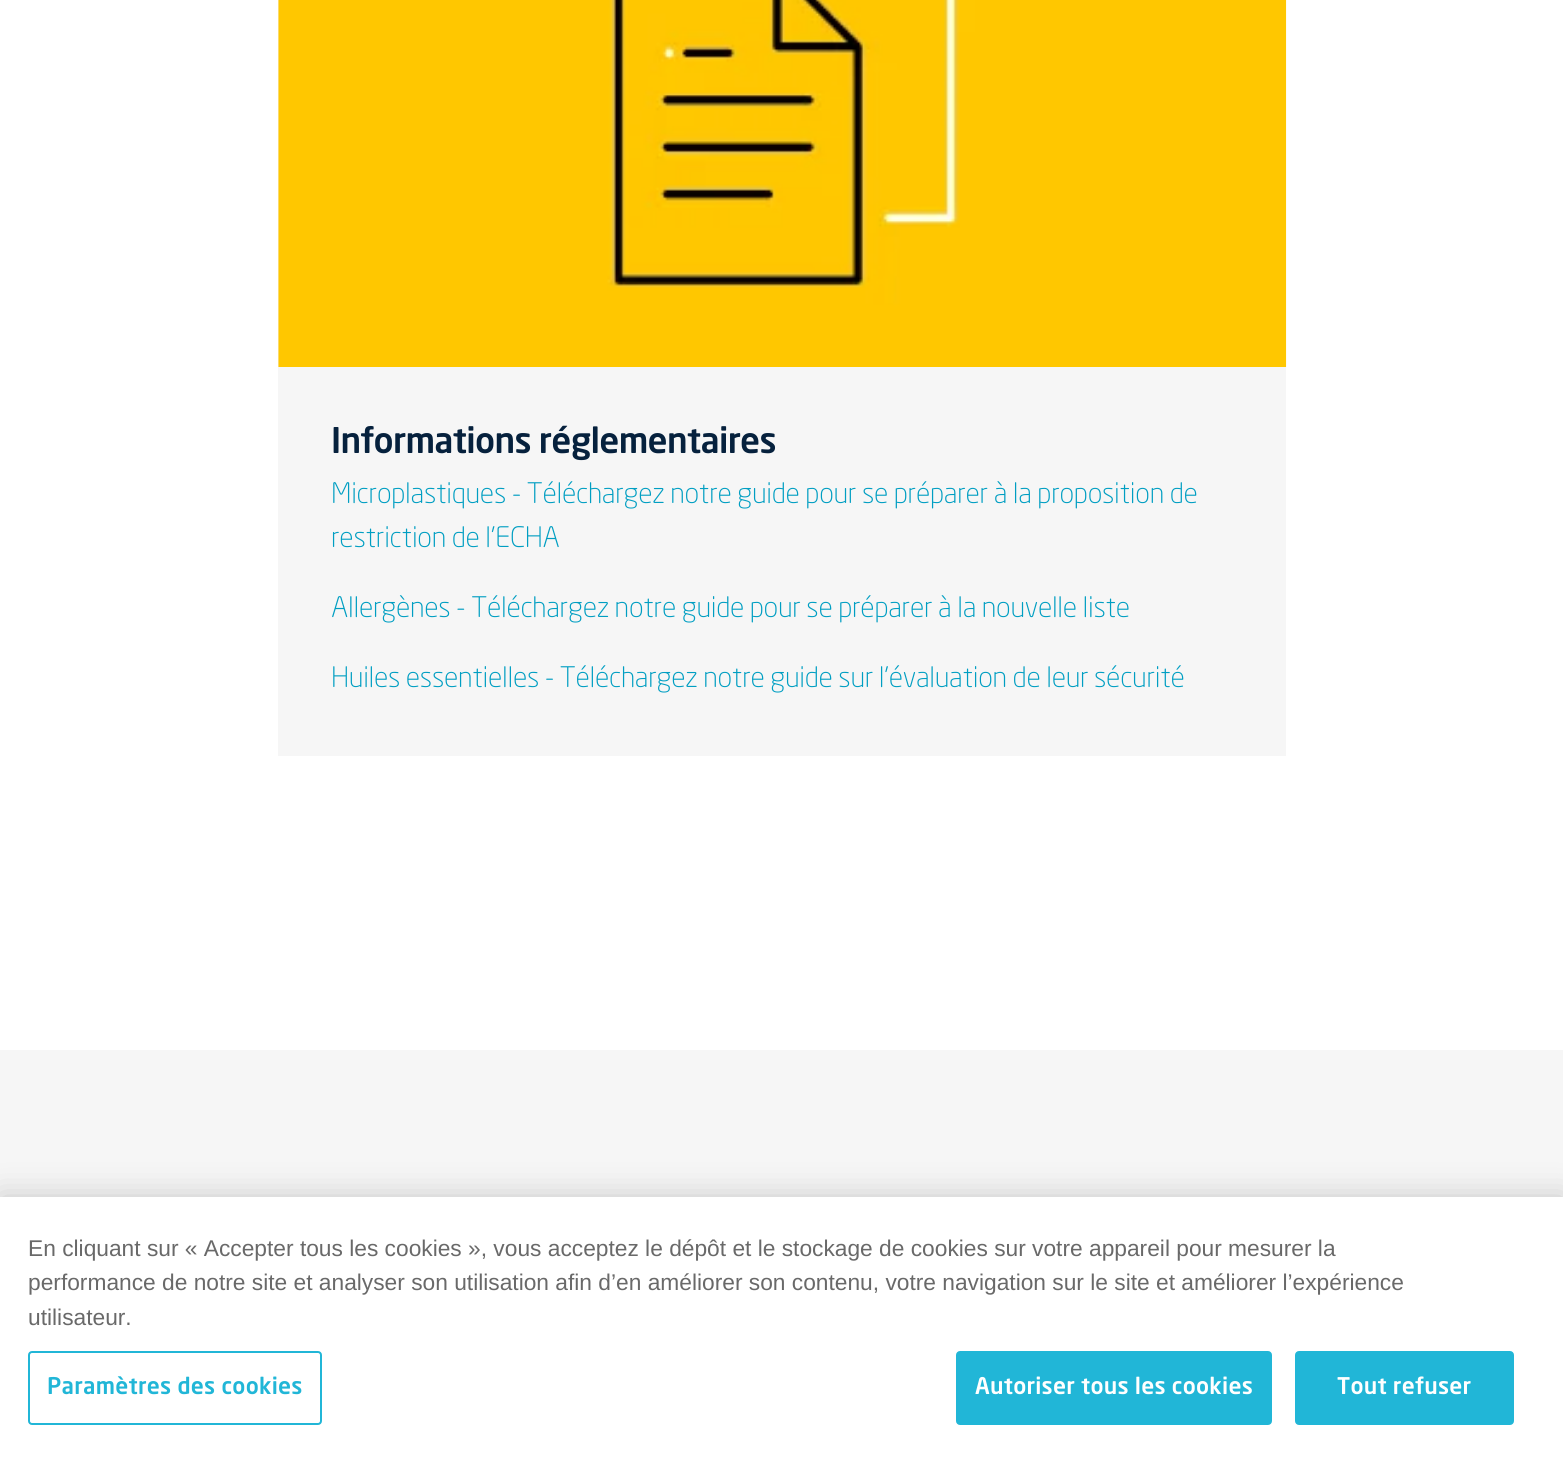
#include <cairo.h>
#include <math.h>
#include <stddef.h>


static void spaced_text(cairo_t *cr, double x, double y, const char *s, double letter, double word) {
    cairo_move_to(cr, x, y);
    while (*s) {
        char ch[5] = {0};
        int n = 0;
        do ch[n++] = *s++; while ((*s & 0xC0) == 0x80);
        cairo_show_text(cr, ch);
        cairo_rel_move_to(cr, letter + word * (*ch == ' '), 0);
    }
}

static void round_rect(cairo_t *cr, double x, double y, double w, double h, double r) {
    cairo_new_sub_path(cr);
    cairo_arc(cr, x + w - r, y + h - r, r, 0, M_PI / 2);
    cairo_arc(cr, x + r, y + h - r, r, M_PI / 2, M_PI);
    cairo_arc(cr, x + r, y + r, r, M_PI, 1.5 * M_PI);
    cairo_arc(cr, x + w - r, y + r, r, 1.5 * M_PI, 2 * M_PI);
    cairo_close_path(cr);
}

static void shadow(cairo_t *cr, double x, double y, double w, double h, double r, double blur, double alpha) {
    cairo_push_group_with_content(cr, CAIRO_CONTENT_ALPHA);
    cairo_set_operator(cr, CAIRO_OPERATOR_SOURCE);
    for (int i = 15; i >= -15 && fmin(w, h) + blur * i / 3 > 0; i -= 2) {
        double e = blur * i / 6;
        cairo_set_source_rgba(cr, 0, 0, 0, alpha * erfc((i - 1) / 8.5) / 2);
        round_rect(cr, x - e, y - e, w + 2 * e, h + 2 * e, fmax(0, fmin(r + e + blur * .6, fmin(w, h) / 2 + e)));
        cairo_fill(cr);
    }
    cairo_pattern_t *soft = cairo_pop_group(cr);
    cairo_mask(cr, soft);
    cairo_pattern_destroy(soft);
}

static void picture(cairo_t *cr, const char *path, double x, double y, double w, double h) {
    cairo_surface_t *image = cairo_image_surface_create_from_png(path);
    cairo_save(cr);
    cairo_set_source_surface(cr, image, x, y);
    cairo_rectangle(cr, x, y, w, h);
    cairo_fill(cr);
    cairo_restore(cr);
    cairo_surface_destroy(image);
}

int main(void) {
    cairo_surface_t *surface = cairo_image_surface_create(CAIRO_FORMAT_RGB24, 1563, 1458);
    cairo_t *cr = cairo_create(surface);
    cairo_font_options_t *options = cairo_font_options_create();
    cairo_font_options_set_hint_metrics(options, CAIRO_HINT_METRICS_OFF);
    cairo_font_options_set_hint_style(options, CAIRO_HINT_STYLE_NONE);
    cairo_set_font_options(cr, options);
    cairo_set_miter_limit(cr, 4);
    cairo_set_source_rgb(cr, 1, 1, 1);
    cairo_paint(cr);
    cairo_set_source_rgb(cr, 0.961, 0.961, 0.961);
    cairo_rectangle(cr, 278, 0, 1008, 756);
    cairo_fill(cr);
    picture(cr, "img1.png", 278, 0, 1009, 367);
    cairo_select_font_face(cr, "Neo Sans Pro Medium", CAIRO_FONT_SLANT_NORMAL, CAIRO_FONT_WEIGHT_NORMAL);
    cairo_set_font_size(cr, 35);
    cairo_set_source_rgb(cr, 0.024, 0.129, 0.239);
    spaced_text(cr, 331, 453, "Informations réglementaires", -0.7, 0);
    cairo_select_font_face(cr, "Neo Sans Pro Light", CAIRO_FONT_SLANT_NORMAL, CAIRO_FONT_WEIGHT_NORMAL);
    cairo_set_font_size(cr, 28);
    cairo_set_source_rgb(cr, 0, 0.62, 0.761);
    spaced_text(cr, 331, 503, "Microplastiques - Téléchargez notre guide pour se préparer à la proposition de", -0.28, 0);
    spaced_text(cr, 331, 547, "restriction de l'ECHA", -0.28, 0);
    spaced_text(cr, 331, 617, "Allergènes - Téléchargez notre guide pour se préparer à la nouvelle liste", -0.28, 0);
    spaced_text(cr, 331, 687, "Huiles essentielles - Téléchargez notre guide sur l'évaluation de leur sécurité", -0.28, 0);
    cairo_set_source_rgb(cr, 0.961, 0.961, 0.961);
    cairo_rectangle(cr, 0, 1050, 1563, 147);
    cairo_fill(cr);
    cairo_set_source_rgb(cr, 0, 0, 0);
    shadow(cr, 0, 1197, 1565, 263, 0, 16, 0.2);
    cairo_set_source_rgb(cr, 1, 1, 1);
    cairo_rectangle(cr, 0, 1197, 1563, 261);
    cairo_fill(cr);
    cairo_select_font_face(cr, "Liberation Sans", CAIRO_FONT_SLANT_NORMAL, CAIRO_FONT_WEIGHT_NORMAL);
    cairo_set_font_size(cr, 22.75);
    cairo_set_source_rgb(cr, 0.412, 0.412, 0.412);
    cairo_move_to(cr, 28, 1256);
    cairo_show_text(cr, "En cliquant sur « Accepter tous les cookies », vous acceptez le dépôt et le stockage de cookies sur votre appareil pour mesurer la");
    cairo_move_to(cr, 28, 1290);
    cairo_show_text(cr, "performance de notre site et analyser son utilisation afin d’en améliorer son contenu, votre navigation sur le site et améliorer l’expérience");
    cairo_move_to(cr, 28, 1325);
    cairo_show_text(cr, "utilisateur.");
    round_rect(cr, 29, 1352, 292, 72, 3);
    cairo_set_source_rgb(cr, 0.129, 0.714, 0.843);
    cairo_stroke(cr);
    cairo_select_font_face(cr, "Neo Sans Pro Medium", CAIRO_FONT_SLANT_NORMAL, CAIRO_FONT_WEIGHT_NORMAL);
    spaced_text(cr, 47, 1394, "Paramètres des cookies", 0.25, 0);
    round_rect(cr, 957, 1352, 314, 72, 3);
    cairo_fill_preserve(cr);
    cairo_stroke(cr);
    cairo_set_source_rgb(cr, 1, 1, 1);
    spaced_text(cr, 975, 1394, "Autoriser tous les cookies", 0.25, 0);
    cairo_set_source_rgb(cr, 0.129, 0.714, 0.843);
    round_rect(cr, 1296, 1352, 217, 72, 3);
    cairo_fill_preserve(cr);
    cairo_stroke(cr);
    cairo_set_source_rgb(cr, 1, 1, 1);
    spaced_text(cr, 1337, 1394, "Tout refuser", 0.25, 0);
    cairo_surface_write_to_png(surface, "page.png");
    cairo_font_options_destroy(options);
    cairo_destroy(cr);
    cairo_surface_destroy(surface);
    return 0;
}
